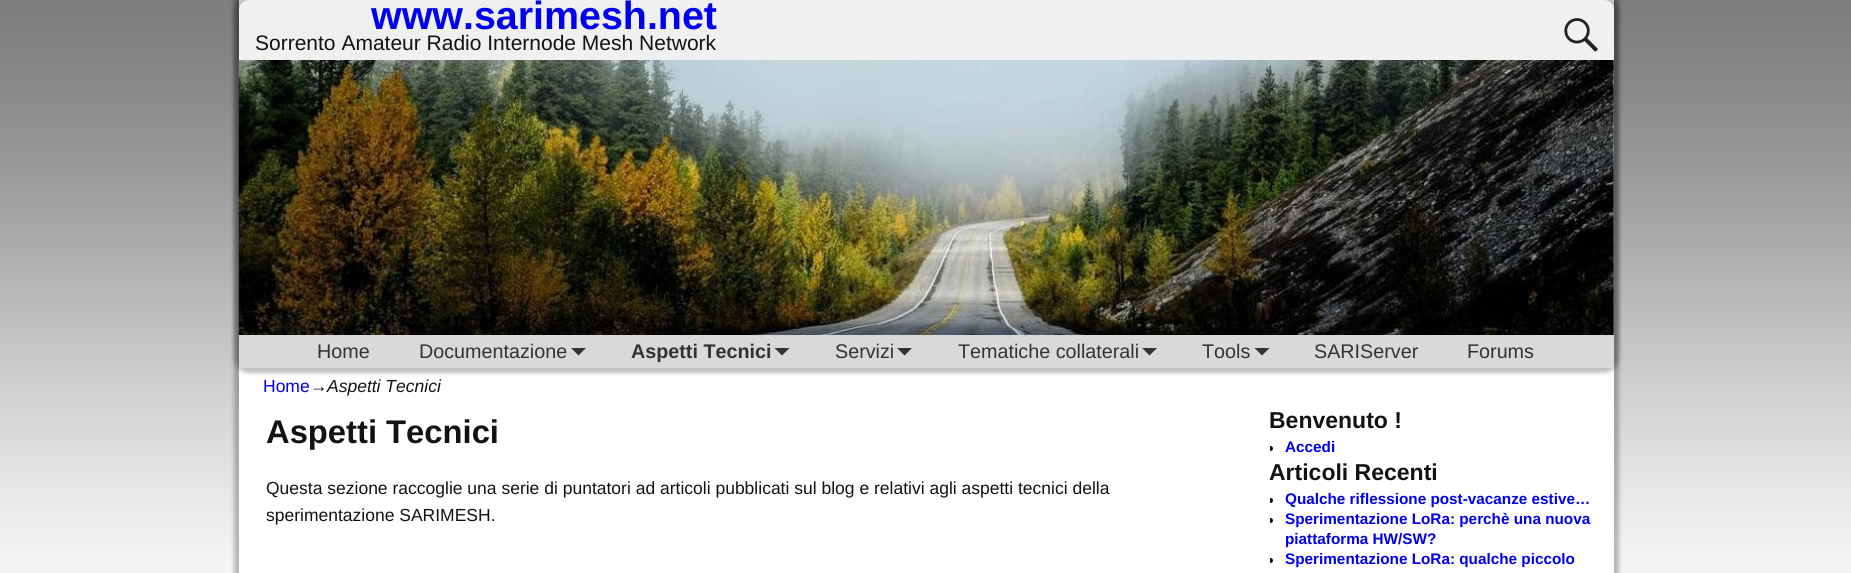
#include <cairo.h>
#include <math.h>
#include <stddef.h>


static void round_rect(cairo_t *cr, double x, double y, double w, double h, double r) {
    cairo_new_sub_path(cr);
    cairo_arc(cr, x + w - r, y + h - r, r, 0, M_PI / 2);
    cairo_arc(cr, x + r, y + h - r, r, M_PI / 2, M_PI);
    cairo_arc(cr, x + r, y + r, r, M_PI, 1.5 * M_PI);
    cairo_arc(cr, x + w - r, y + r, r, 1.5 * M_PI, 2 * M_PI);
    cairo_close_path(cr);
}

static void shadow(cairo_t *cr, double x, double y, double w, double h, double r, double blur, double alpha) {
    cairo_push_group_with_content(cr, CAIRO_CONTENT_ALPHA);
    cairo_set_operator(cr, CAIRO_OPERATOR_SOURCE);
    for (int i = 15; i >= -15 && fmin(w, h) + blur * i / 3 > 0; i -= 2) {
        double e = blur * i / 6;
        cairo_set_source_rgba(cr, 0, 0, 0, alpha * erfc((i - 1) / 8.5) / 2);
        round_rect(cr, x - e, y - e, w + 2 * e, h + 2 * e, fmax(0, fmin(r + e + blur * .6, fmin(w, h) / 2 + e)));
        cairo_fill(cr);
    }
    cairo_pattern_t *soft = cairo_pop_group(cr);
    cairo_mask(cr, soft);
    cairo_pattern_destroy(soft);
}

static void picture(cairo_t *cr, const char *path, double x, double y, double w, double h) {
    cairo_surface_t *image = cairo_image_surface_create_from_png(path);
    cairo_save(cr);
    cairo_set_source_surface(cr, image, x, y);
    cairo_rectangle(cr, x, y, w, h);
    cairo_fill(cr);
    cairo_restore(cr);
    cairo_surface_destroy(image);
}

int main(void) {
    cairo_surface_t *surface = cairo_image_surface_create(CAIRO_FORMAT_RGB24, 1851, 573);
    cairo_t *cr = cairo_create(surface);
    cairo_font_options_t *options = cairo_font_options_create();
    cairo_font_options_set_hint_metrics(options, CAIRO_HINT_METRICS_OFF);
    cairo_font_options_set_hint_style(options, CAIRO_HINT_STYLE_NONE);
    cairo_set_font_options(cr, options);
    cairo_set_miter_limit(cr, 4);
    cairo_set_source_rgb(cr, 0.988, 0.988, 0.988);
    cairo_paint(cr);
    picture(cr, "img1.png", 0, 0, 1851, 573);
    cairo_set_source_rgb(cr, 0, 0, 0);
    shadow(cr, 234, -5, 1385, 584, 0, 2, 0.25);
    cairo_set_source_rgb(cr, 1, 1, 1);
    cairo_rectangle(cr, 239, 0, 1375, 573);
    cairo_fill(cr);
    cairo_set_source_rgb(cr, 0, 0, 0);
    shadow(cr, 234, -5, 1385, 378, 15, 2, 0.25);
    cairo_set_source_rgb(cr, 0.941, 0.941, 0.941);
    round_rect(cr, 239, 0, 1375, 368, 10);
    cairo_fill(cr);
    cairo_select_font_face(cr, "Liberation Sans", CAIRO_FONT_SLANT_NORMAL, CAIRO_FONT_WEIGHT_BOLD);
    cairo_set_font_size(cr, 39.4);
    cairo_set_source_rgb(cr, 0, 0, 0.933);
    cairo_move_to(cr, 371, 29);
    cairo_show_text(cr, "www.sarimesh.net");
    cairo_select_font_face(cr, "Liberation Sans", CAIRO_FONT_SLANT_NORMAL, CAIRO_FONT_WEIGHT_NORMAL);
    cairo_set_font_size(cr, 21);
    cairo_set_source_rgb(cr, 0.071, 0.071, 0.071);
    cairo_move_to(cr, 255, 50);
    cairo_show_text(cr, "Sorrento Amateur Radio Internode Mesh Network");
    picture(cr, "img2.png", 1564, 18, 34, 34);
    picture(cr, "img3.png", 238, 60, 1376, 275);
    cairo_set_source_rgb(cr, 0.851, 0.851, 0.851);
    cairo_rectangle(cr, 239, 335, 1375, 33);
    cairo_fill(cr);
    cairo_set_font_size(cr, 19.75);
    cairo_set_source_rgb(cr, 0.2, 0.2, 0.2);
    cairo_move_to(cr, 317, 358);
    cairo_show_text(cr, "Home");
    cairo_move_to(cr, 419, 358);
    cairo_show_text(cr, "Documentazione");
    cairo_new_path(cr);
    cairo_move_to(cr, 571, 348);
    cairo_line_to(cr, 586, 348);
    cairo_line_to(cr, 578.5, 355.5);
    cairo_close_path(cr);
    cairo_fill(cr);
    cairo_select_font_face(cr, "Liberation Sans", CAIRO_FONT_SLANT_NORMAL, CAIRO_FONT_WEIGHT_BOLD);
    cairo_move_to(cr, 631, 358);
    cairo_show_text(cr, "Aspetti Tecnici");
    cairo_new_path(cr);
    cairo_move_to(cr, 774.5, 348);
    cairo_line_to(cr, 789.5, 348);
    cairo_line_to(cr, 782, 355.5);
    cairo_close_path(cr);
    cairo_fill(cr);
    cairo_select_font_face(cr, "Liberation Sans", CAIRO_FONT_SLANT_NORMAL, CAIRO_FONT_WEIGHT_NORMAL);
    cairo_move_to(cr, 835, 358);
    cairo_show_text(cr, "Servizi");
    cairo_new_path(cr);
    cairo_move_to(cr, 897, 348);
    cairo_line_to(cr, 912, 348);
    cairo_line_to(cr, 904.5, 355.5);
    cairo_close_path(cr);
    cairo_fill(cr);
    cairo_move_to(cr, 958, 358);
    cairo_show_text(cr, "Tematiche collaterali");
    cairo_new_path(cr);
    cairo_move_to(cr, 1142, 348);
    cairo_line_to(cr, 1157, 348);
    cairo_line_to(cr, 1149.5, 355.5);
    cairo_close_path(cr);
    cairo_fill(cr);
    cairo_move_to(cr, 1202, 358);
    cairo_show_text(cr, "Tools");
    cairo_new_path(cr);
    cairo_move_to(cr, 1254.5, 348);
    cairo_line_to(cr, 1269.5, 348);
    cairo_line_to(cr, 1262, 355.5);
    cairo_close_path(cr);
    cairo_fill(cr);
    cairo_move_to(cr, 1314, 358);
    cairo_show_text(cr, "SARIServer");
    cairo_move_to(cr, 1467, 358);
    cairo_show_text(cr, "Forums");
    cairo_set_font_size(cr, 17.5);
    cairo_set_source_rgb(cr, 0, 0, 0.933);
    cairo_move_to(cr, 263, 392);
    cairo_show_text(cr, "Home");
    cairo_set_source_rgb(cr, 0.071, 0.071, 0.071);
    cairo_move_to(cr, 310, 392);
    cairo_show_text(cr, "→");
    cairo_select_font_face(cr, "Liberation Sans", CAIRO_FONT_SLANT_ITALIC, CAIRO_FONT_WEIGHT_NORMAL);
    cairo_move_to(cr, 327, 392);
    cairo_show_text(cr, "Aspetti Tecnici");
    cairo_select_font_face(cr, "Liberation Sans", CAIRO_FONT_SLANT_NORMAL, CAIRO_FONT_WEIGHT_BOLD);
    cairo_set_font_size(cr, 32.75);
    cairo_move_to(cr, 266, 443);
    cairo_show_text(cr, "Aspetti Tecnici");
    cairo_select_font_face(cr, "Liberation Sans", CAIRO_FONT_SLANT_NORMAL, CAIRO_FONT_WEIGHT_NORMAL);
    cairo_set_font_size(cr, 17.5);
    cairo_move_to(cr, 266, 494);
    cairo_show_text(cr, "Questa sezione raccoglie una serie di puntatori ad articoli pubblicati sul blog e relativi agli aspetti tecnici della");
    cairo_move_to(cr, 266, 521);
    cairo_show_text(cr, "sperimentazione SARIMESH.");
    cairo_select_font_face(cr, "Liberation Sans", CAIRO_FONT_SLANT_NORMAL, CAIRO_FONT_WEIGHT_BOLD);
    cairo_set_font_size(cr, 23);
    cairo_move_to(cr, 1269, 428);
    cairo_show_text(cr, "Benvenuto !");
    cairo_save(cr);
    cairo_rectangle(cr, 1270, 406, 334, 52);
    cairo_clip(cr);
    cairo_arc(cr, 1270.5, 448.5, 2.5, 0, 2 * M_PI);
    cairo_fill(cr);
    cairo_restore(cr);
    cairo_set_font_size(cr, 15.3);
    cairo_set_source_rgb(cr, 0, 0, 0.933);
    cairo_move_to(cr, 1285, 452);
    cairo_show_text(cr, "Accedi");
    cairo_set_font_size(cr, 23);
    cairo_set_source_rgb(cr, 0.071, 0.071, 0.071);
    cairo_move_to(cr, 1269, 480);
    cairo_show_text(cr, "Articoli Recenti");
    cairo_save(cr);
    cairo_rectangle(cr, 1270, 458, 334, 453);
    cairo_clip(cr);
    cairo_arc(cr, 1270.5, 500.5, 2.5, 0, 2 * M_PI);
    cairo_fill(cr);
    cairo_restore(cr);
    cairo_set_font_size(cr, 15.3);
    cairo_set_source_rgb(cr, 0, 0, 0.933);
    cairo_move_to(cr, 1285, 504);
    cairo_show_text(cr, "Qualche riflessione post-vacanze estive…");
    cairo_save(cr);
    cairo_rectangle(cr, 1270, 458, 334, 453);
    cairo_clip(cr);
    cairo_set_source_rgb(cr, 0.071, 0.071, 0.071);
    cairo_arc(cr, 1270.5, 520.5, 2.5, 0, 2 * M_PI);
    cairo_fill(cr);
    cairo_restore(cr);
    cairo_move_to(cr, 1285, 524);
    cairo_show_text(cr, "Sperimentazione LoRa: perchè una nuova");
    cairo_move_to(cr, 1285, 544);
    cairo_show_text(cr, "piattaforma HW/SW?");
    cairo_save(cr);
    cairo_rectangle(cr, 1270, 458, 334, 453);
    cairo_clip(cr);
    cairo_set_source_rgb(cr, 0.071, 0.071, 0.071);
    cairo_arc(cr, 1270.5, 560.5, 2.5, 0, 2 * M_PI);
    cairo_fill(cr);
    cairo_restore(cr);
    cairo_move_to(cr, 1285, 564);
    cairo_show_text(cr, "Sperimentazione LoRa: qualche piccolo");
    cairo_surface_write_to_png(surface, "page.png");
    cairo_font_options_destroy(options);
    cairo_destroy(cr);
    cairo_surface_destroy(surface);
    return 0;
}
